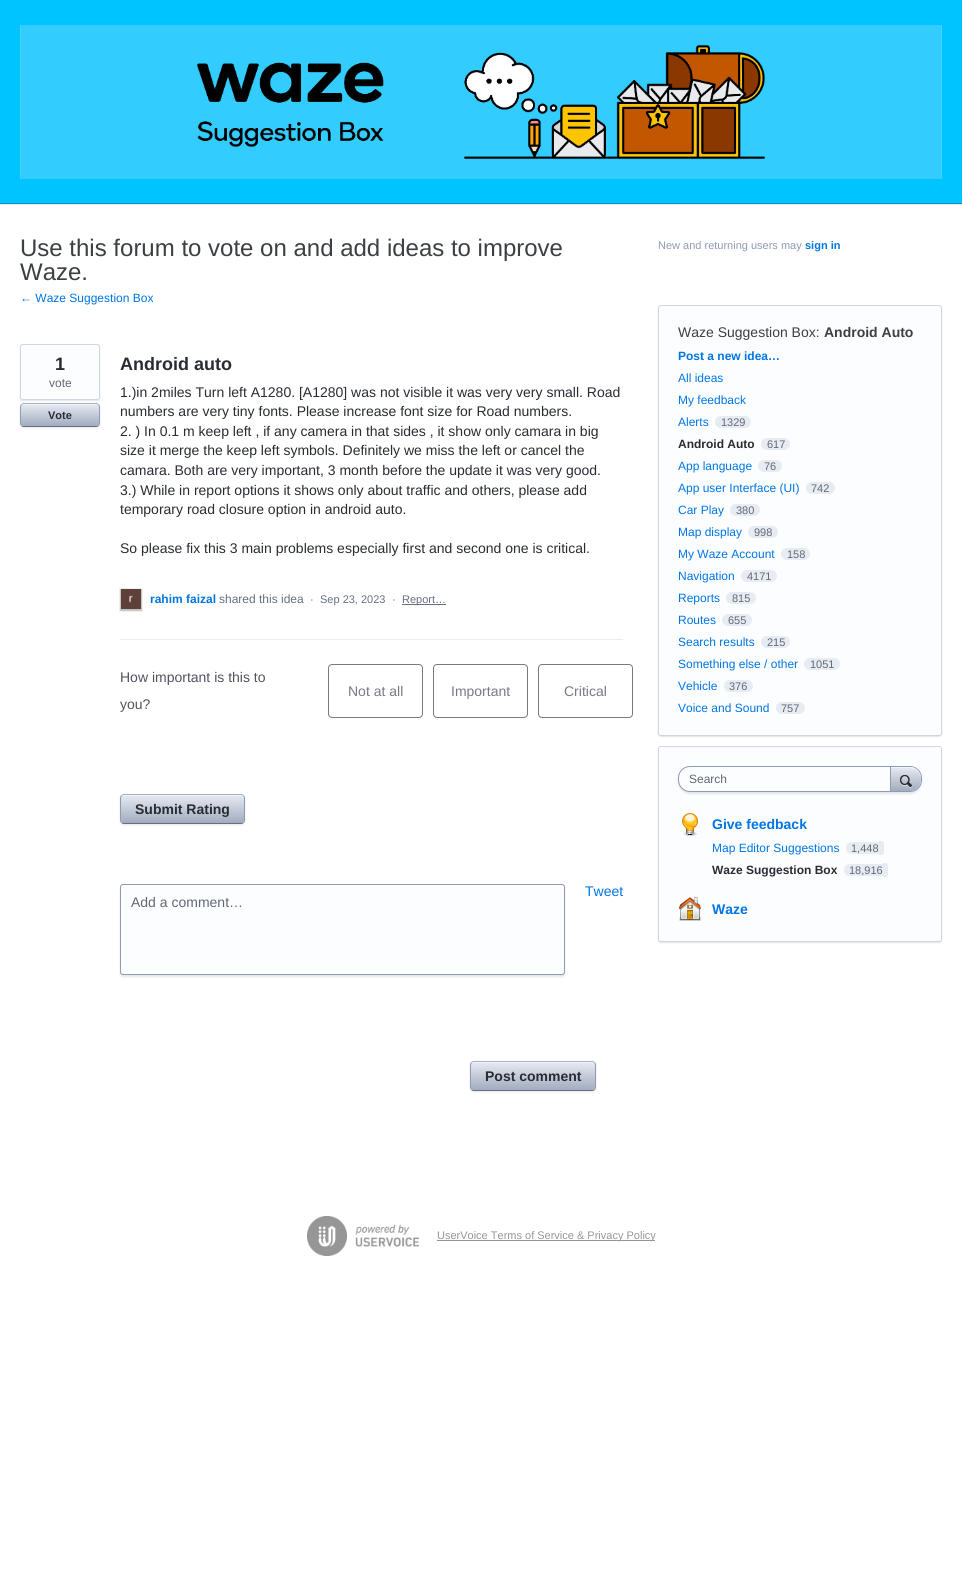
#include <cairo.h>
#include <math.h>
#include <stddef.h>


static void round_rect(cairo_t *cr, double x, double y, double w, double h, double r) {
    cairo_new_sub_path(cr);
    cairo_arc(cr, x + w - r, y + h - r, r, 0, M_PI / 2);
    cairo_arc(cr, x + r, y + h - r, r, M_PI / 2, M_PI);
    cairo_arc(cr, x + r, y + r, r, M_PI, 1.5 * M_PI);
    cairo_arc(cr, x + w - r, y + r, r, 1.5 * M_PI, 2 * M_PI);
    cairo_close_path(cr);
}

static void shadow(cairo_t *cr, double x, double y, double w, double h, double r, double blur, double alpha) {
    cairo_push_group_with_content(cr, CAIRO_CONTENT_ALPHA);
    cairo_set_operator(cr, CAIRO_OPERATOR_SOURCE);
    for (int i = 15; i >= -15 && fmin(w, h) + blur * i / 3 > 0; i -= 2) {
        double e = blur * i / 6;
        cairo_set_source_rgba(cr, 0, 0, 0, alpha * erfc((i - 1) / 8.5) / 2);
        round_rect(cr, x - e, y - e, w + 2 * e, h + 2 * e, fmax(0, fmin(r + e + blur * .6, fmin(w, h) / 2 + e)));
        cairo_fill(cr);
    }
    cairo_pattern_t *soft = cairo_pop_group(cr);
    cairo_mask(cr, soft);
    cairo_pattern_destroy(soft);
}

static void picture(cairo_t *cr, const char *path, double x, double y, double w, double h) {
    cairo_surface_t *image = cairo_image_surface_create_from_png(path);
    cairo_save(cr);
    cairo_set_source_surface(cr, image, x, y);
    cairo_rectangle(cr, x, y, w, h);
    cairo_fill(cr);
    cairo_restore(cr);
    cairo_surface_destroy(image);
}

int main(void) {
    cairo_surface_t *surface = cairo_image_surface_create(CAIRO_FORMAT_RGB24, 962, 1578);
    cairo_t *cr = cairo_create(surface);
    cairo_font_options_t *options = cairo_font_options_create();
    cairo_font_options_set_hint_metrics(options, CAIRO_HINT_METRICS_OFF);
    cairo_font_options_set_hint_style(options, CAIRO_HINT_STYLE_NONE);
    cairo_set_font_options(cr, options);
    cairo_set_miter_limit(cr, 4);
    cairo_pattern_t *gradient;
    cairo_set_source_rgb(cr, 1, 1, 1);
    cairo_paint(cr);
    cairo_set_source_rgb(cr, 0, 0.769, 1);
    cairo_rectangle(cr, 0, 0, 962, 203);
    cairo_fill(cr);
    cairo_set_source_rgb(cr, 0, 0.576, 0.749);
    cairo_rectangle(cr, 0, 203, 962, 1);
    cairo_fill(cr);
    picture(cr, "img1.png", 20, 25, 922, 154);
    cairo_set_source_rgb(cr, 0.89, 0.91, 0.949);
    cairo_rectangle(cr, 0, 204, 962, 1);
    cairo_fill(cr);
    cairo_select_font_face(cr, "Liberation Sans", CAIRO_FONT_SLANT_NORMAL, CAIRO_FONT_WEIGHT_NORMAL);
    cairo_set_font_size(cr, 24);
    cairo_set_source_rgb(cr, 0.235, 0.251, 0.263);
    cairo_move_to(cr, 20, 256);
    cairo_show_text(cr, "Use this forum to vote on and add ideas to improve");
    cairo_move_to(cr, 20, 280);
    cairo_show_text(cr, "Waze.");
    cairo_set_font_size(cr, 12);
    cairo_set_source_rgb(cr, 0, 0.459, 0.89);
    cairo_move_to(cr, 20, 302);
    cairo_show_text(cr, "← Waze Suggestion Box");
    cairo_set_source_rgb(cr, 0, 0, 0);
    shadow(cr, 20, 345, 80, 56, 3, 0.5, 0.1);
    cairo_set_source_rgb(cr, 0.988, 0.992, 1);
    round_rect(cr, 20.5, 344.5, 79, 55, 2.5);
    cairo_fill_preserve(cr);
    cairo_set_source_rgb(cr, 0.812, 0.843, 0.902);
    cairo_set_line_width(cr, 1);
    cairo_stroke(cr);
    cairo_select_font_face(cr, "Liberation Sans", CAIRO_FONT_SLANT_NORMAL, CAIRO_FONT_WEIGHT_BOLD);
    cairo_set_font_size(cr, 18);
    cairo_set_source_rgb(cr, 0.161, 0.173, 0.2);
    cairo_move_to(cr, 55, 370);
    cairo_show_text(cr, "1");
    cairo_select_font_face(cr, "Liberation Sans", CAIRO_FONT_SLANT_NORMAL, CAIRO_FONT_WEIGHT_NORMAL);
    cairo_set_font_size(cr, 12);
    cairo_set_source_rgb(cr, 0.38, 0.412, 0.451);
    cairo_move_to(cr, 49, 387);
    cairo_show_text(cr, "vote");
    cairo_set_source_rgb(cr, 0, 0, 0);
    shadow(cr, 20, 404, 80, 24, 4, 1, 0.1);
    gradient = cairo_pattern_create_linear(21, 404, 21, 426);
    cairo_pattern_add_color_stop_rgba(gradient, 0, 0.902, 0.918, 0.949, 1);
    cairo_pattern_add_color_stop_rgba(gradient, 1, 0.635, 0.675, 0.749, 1);
    cairo_set_source(cr, gradient);
    cairo_pattern_destroy(gradient);
    round_rect(cr, 21, 404, 78, 22, 3);
    cairo_fill(cr);
    cairo_set_source_rgba(cr, 1, 1, 1, 0.5);
    cairo_new_path(cr);
    cairo_move_to(cr, 24, 405);
    cairo_line_to(cr, 96, 405);
    cairo_curve_to(cr, 98, 405, 99, 406, 99, 408);
    cairo_curve_to(cr, 99, 401, 88, 404, 84, 404);
    cairo_line_to(cr, 36, 404);
    cairo_curve_to(cr, 32, 404, 21, 401, 21, 408);
    cairo_curve_to(cr, 21, 406, 22, 405, 24, 405);
    cairo_close_path(cr);
    cairo_fill(cr);
    cairo_new_path(cr);
    cairo_move_to(cr, 21.5, 404.5);
    cairo_curve_to(cr, 22, 404, 23, 403.5, 24, 403.5);
    cairo_line_to(cr, 96, 403.5);
    cairo_curve_to(cr, 97, 403.5, 98, 404, 98.5, 404.5);
    cairo_set_source_rgb(cr, 0.639, 0.694, 0.8);
    cairo_stroke(cr);
    cairo_new_path(cr);
    cairo_move_to(cr, 98.5, 404.5);
    cairo_curve_to(cr, 99, 405, 99.5, 406, 99.5, 407);
    cairo_line_to(cr, 99.5, 423);
    cairo_curve_to(cr, 99.5, 424, 99, 425, 98.5, 425.5);
    cairo_set_source_rgb(cr, 0.561, 0.608, 0.702);
    cairo_stroke(cr);
    cairo_new_path(cr);
    cairo_move_to(cr, 98.5, 425.5);
    cairo_curve_to(cr, 98, 426, 97, 426.5, 96, 426.5);
    cairo_line_to(cr, 24, 426.5);
    cairo_curve_to(cr, 23, 426.5, 22, 426, 21.5, 425.5);
    cairo_set_source_rgb(cr, 0.4, 0.435, 0.502);
    cairo_stroke(cr);
    cairo_new_path(cr);
    cairo_move_to(cr, 21.5, 425.5);
    cairo_curve_to(cr, 21, 425, 20.5, 424, 20.5, 423);
    cairo_line_to(cr, 20.5, 407);
    cairo_curve_to(cr, 20.5, 406, 21, 405, 21.5, 404.5);
    cairo_set_source_rgb(cr, 0.561, 0.608, 0.702);
    cairo_stroke(cr);
    cairo_select_font_face(cr, "Liberation Sans", CAIRO_FONT_SLANT_NORMAL, CAIRO_FONT_WEIGHT_BOLD);
    cairo_set_font_size(cr, 11);
    cairo_set_source_rgb(cr, 0.161, 0.173, 0.2);
    cairo_move_to(cr, 48, 419);
    cairo_show_text(cr, "Vote");
    cairo_set_font_size(cr, 18);
    cairo_move_to(cr, 120, 370);
    cairo_show_text(cr, "Android auto");
    cairo_select_font_face(cr, "Liberation Sans", CAIRO_FONT_SLANT_NORMAL, CAIRO_FONT_WEIGHT_NORMAL);
    cairo_set_font_size(cr, 14);
    cairo_move_to(cr, 120, 397);
    cairo_show_text(cr, "1.)in 2miles Turn left A1280. [A1280] was not visible it was very very small. Road");
    cairo_move_to(cr, 120, 416);
    cairo_show_text(cr, "numbers are very tiny fonts. Please increase font size for Road numbers.");
    cairo_move_to(cr, 120, 436);
    cairo_show_text(cr, "2. ) In 0.1 m keep left , if any camera in that sides , it show only camara in big");
    cairo_move_to(cr, 120, 455);
    cairo_show_text(cr, "size it merge the keep left symbols. Definitely we miss the left or cancel the");
    cairo_move_to(cr, 120, 475);
    cairo_show_text(cr, "camara. Both are very important, 3 month before the update it was very good.");
    cairo_move_to(cr, 120, 495);
    cairo_show_text(cr, "3.) While in report options it shows only about traffic and others, please add");
    cairo_move_to(cr, 120, 514);
    cairo_show_text(cr, "temporary road closure option in android auto.");
    cairo_move_to(cr, 120, 553);
    cairo_show_text(cr, "So please fix this 3 main problems especially first and second one is critical.");
    cairo_set_source_rgb(cr, 0, 0, 0);
    shadow(cr, 120, 589, 22, 22, 0, 0.5, 0.25);
    picture(cr, "img2.png", 121, 589, 20, 20);
    cairo_select_font_face(cr, "Liberation Sans", CAIRO_FONT_SLANT_NORMAL, CAIRO_FONT_WEIGHT_BOLD);
    cairo_set_font_size(cr, 12);
    cairo_set_source_rgb(cr, 0, 0.459, 0.89);
    cairo_move_to(cr, 150, 603);
    cairo_show_text(cr, "rahim faizal");
    cairo_select_font_face(cr, "Liberation Sans", CAIRO_FONT_SLANT_NORMAL, CAIRO_FONT_WEIGHT_NORMAL);
    cairo_set_source_rgb(cr, 0.4, 0.435, 0.502);
    cairo_move_to(cr, 219, 603);
    cairo_show_text(cr, "shared this idea");
    cairo_set_font_size(cr, 11);
    cairo_set_source_rgb(cr, 0.38, 0.412, 0.451);
    cairo_move_to(cr, 310, 603);
    cairo_show_text(cr, "·");
    cairo_set_source_rgb(cr, 0.4, 0.435, 0.502);
    cairo_move_to(cr, 320, 603);
    cairo_show_text(cr, "Sep 23, 2023");
    cairo_set_source_rgb(cr, 0.38, 0.412, 0.451);
    cairo_move_to(cr, 392, 603);
    cairo_show_text(cr, "·");
    cairo_set_source_rgb(cr, 0.4, 0.435, 0.502);
    cairo_rectangle(cr, 402, 604, 44, 1);
    cairo_fill(cr);
    cairo_move_to(cr, 402, 603);
    cairo_show_text(cr, "Report…");
    cairo_set_source_rgb(cr, 0.922, 0.922, 0.945);
    cairo_rectangle(cr, 120, 639, 503, 1);
    cairo_fill(cr);
    cairo_set_font_size(cr, 14);
    cairo_set_source_rgb(cr, 0.322, 0.322, 0.376);
    cairo_move_to(cr, 120, 682);
    cairo_show_text(cr, "How important is this to");
    cairo_move_to(cr, 120, 709);
    cairo_show_text(cr, "you?");
    round_rect(cr, 328.5, 664.5, 94, 53, 3.5);
    cairo_set_source_rgb(cr, 0.475, 0.475, 0.525);
    cairo_stroke(cr);
    cairo_move_to(cr, 348, 696);
    cairo_show_text(cr, "Not at all");
    round_rect(cr, 433.5, 664.5, 94, 53, 3.5);
    cairo_stroke(cr);
    cairo_move_to(cr, 451, 696);
    cairo_show_text(cr, "Important");
    round_rect(cr, 538.5, 664.5, 94, 53, 3.5);
    cairo_stroke(cr);
    cairo_move_to(cr, 564, 696);
    cairo_show_text(cr, "Critical");
    cairo_set_source_rgb(cr, 0, 0, 0);
    shadow(cr, 120, 795, 125, 30, 4, 1, 0.1);
    gradient = cairo_pattern_create_linear(121, 795, 121, 823);
    cairo_pattern_add_color_stop_rgba(gradient, 0, 0.902, 0.918, 0.949, 1);
    cairo_pattern_add_color_stop_rgba(gradient, 1, 0.635, 0.675, 0.749, 1);
    cairo_set_source(cr, gradient);
    cairo_pattern_destroy(gradient);
    round_rect(cr, 121, 795, 123, 28, 3);
    cairo_fill(cr);
    cairo_set_source_rgba(cr, 1, 1, 1, 0.5);
    cairo_new_path(cr);
    cairo_move_to(cr, 124, 796);
    cairo_line_to(cr, 241, 796);
    cairo_curve_to(cr, 243, 796, 244, 797, 244, 799);
    cairo_curve_to(cr, 244, 797, 243, 795, 241, 795);
    cairo_line_to(cr, 144, 795);
    cairo_curve_to(cr, 143, 795, 121, 790, 121, 799);
    cairo_curve_to(cr, 121, 797, 122, 796, 124, 796);
    cairo_close_path(cr);
    cairo_fill(cr);
    cairo_new_path(cr);
    cairo_move_to(cr, 121.5, 795.5);
    cairo_curve_to(cr, 122, 795, 123, 794.5, 124, 794.5);
    cairo_line_to(cr, 241, 794.5);
    cairo_curve_to(cr, 242, 794.5, 243, 795, 243.5, 795.5);
    cairo_set_source_rgb(cr, 0.639, 0.694, 0.8);
    cairo_stroke(cr);
    cairo_new_path(cr);
    cairo_move_to(cr, 243.5, 795.5);
    cairo_curve_to(cr, 244, 796, 244.5, 797, 244.5, 798);
    cairo_line_to(cr, 244.5, 820);
    cairo_curve_to(cr, 244.5, 821, 244, 822, 243.5, 822.5);
    cairo_set_source_rgb(cr, 0.561, 0.608, 0.702);
    cairo_stroke(cr);
    cairo_new_path(cr);
    cairo_move_to(cr, 243.5, 822.5);
    cairo_curve_to(cr, 243, 823, 242, 823.5, 241, 823.5);
    cairo_line_to(cr, 124, 823.5);
    cairo_curve_to(cr, 123, 823.5, 122, 823, 121.5, 822.5);
    cairo_set_source_rgb(cr, 0.4, 0.435, 0.502);
    cairo_stroke(cr);
    cairo_new_path(cr);
    cairo_move_to(cr, 121.5, 822.5);
    cairo_curve_to(cr, 121, 822, 120.5, 821, 120.5, 820);
    cairo_line_to(cr, 120.5, 798);
    cairo_curve_to(cr, 120.5, 797, 121, 796, 121.5, 795.5);
    cairo_set_source_rgb(cr, 0.561, 0.608, 0.702);
    cairo_stroke(cr);
    cairo_select_font_face(cr, "Liberation Sans", CAIRO_FONT_SLANT_NORMAL, CAIRO_FONT_WEIGHT_BOLD);
    cairo_set_source_rgb(cr, 0.161, 0.173, 0.2);
    cairo_move_to(cr, 135, 814);
    cairo_show_text(cr, "Submit Rating");
    cairo_select_font_face(cr, "Liberation Sans", CAIRO_FONT_SLANT_NORMAL, CAIRO_FONT_WEIGHT_NORMAL);
    cairo_set_source_rgb(cr, 0, 0.459, 0.89);
    cairo_move_to(cr, 585, 896);
    cairo_show_text(cr, "Tweet");
    cairo_set_source_rgb(cr, 0, 0, 0);
    shadow(cr, 120, 886, 445, 91, 3, 1, 0.1);
    cairo_set_source_rgb(cr, 0.988, 0.992, 1);
    round_rect(cr, 120.5, 884.5, 444, 90, 2.5);
    cairo_fill_preserve(cr);
    cairo_set_source_rgb(cr, 0.561, 0.608, 0.702);
    cairo_stroke(cr);
    cairo_set_source_rgb(cr, 0.38, 0.412, 0.451);
    cairo_move_to(cr, 131, 907);
    cairo_show_text(cr, "Add a comment…");
    cairo_set_source_rgb(cr, 0, 0, 0);
    shadow(cr, 470, 1062, 126, 30, 4, 1, 0.1);
    gradient = cairo_pattern_create_linear(471, 1062, 471, 1090);
    cairo_pattern_add_color_stop_rgba(gradient, 0, 0.902, 0.918, 0.949, 1);
    cairo_pattern_add_color_stop_rgba(gradient, 1, 0.635, 0.675, 0.749, 1);
    cairo_set_source(cr, gradient);
    cairo_pattern_destroy(gradient);
    round_rect(cr, 471, 1062, 124, 28, 3);
    cairo_fill(cr);
    cairo_set_source_rgba(cr, 1, 1, 1, 0.5);
    cairo_new_path(cr);
    cairo_move_to(cr, 474, 1063);
    cairo_line_to(cr, 592, 1063);
    cairo_curve_to(cr, 594, 1063, 595, 1064, 595, 1066);
    cairo_curve_to(cr, 595, 1064, 594, 1062, 592, 1062);
    cairo_line_to(cr, 494, 1062);
    cairo_curve_to(cr, 493, 1062, 471, 1057, 471, 1066);
    cairo_curve_to(cr, 471, 1064, 472, 1063, 474, 1063);
    cairo_close_path(cr);
    cairo_fill(cr);
    cairo_new_path(cr);
    cairo_move_to(cr, 471.5, 1062.5);
    cairo_curve_to(cr, 472, 1062, 473, 1061.5, 474, 1061.5);
    cairo_line_to(cr, 592, 1061.5);
    cairo_curve_to(cr, 593, 1061.5, 594, 1062, 594.5, 1062.5);
    cairo_set_source_rgb(cr, 0.639, 0.694, 0.8);
    cairo_stroke(cr);
    cairo_new_path(cr);
    cairo_move_to(cr, 594.5, 1062.5);
    cairo_curve_to(cr, 595, 1063, 595.5, 1064, 595.5, 1065);
    cairo_line_to(cr, 595.5, 1087);
    cairo_curve_to(cr, 595.5, 1088, 595, 1089, 594.5, 1089.5);
    cairo_set_source_rgb(cr, 0.561, 0.608, 0.702);
    cairo_stroke(cr);
    cairo_new_path(cr);
    cairo_move_to(cr, 594.5, 1089.5);
    cairo_curve_to(cr, 594, 1090, 593, 1090.5, 592, 1090.5);
    cairo_line_to(cr, 474, 1090.5);
    cairo_curve_to(cr, 473, 1090.5, 472, 1090, 471.5, 1089.5);
    cairo_set_source_rgb(cr, 0.4, 0.435, 0.502);
    cairo_stroke(cr);
    cairo_new_path(cr);
    cairo_move_to(cr, 471.5, 1089.5);
    cairo_curve_to(cr, 471, 1089, 470.5, 1088, 470.5, 1087);
    cairo_line_to(cr, 470.5, 1065);
    cairo_curve_to(cr, 470.5, 1064, 471, 1063, 471.5, 1062.5);
    cairo_set_source_rgb(cr, 0.561, 0.608, 0.702);
    cairo_stroke(cr);
    cairo_select_font_face(cr, "Liberation Sans", CAIRO_FONT_SLANT_NORMAL, CAIRO_FONT_WEIGHT_BOLD);
    cairo_set_source_rgb(cr, 0.161, 0.173, 0.2);
    cairo_move_to(cr, 485, 1081);
    cairo_show_text(cr, "Post comment");
    cairo_select_font_face(cr, "Liberation Sans", CAIRO_FONT_SLANT_NORMAL, CAIRO_FONT_WEIGHT_NORMAL);
    cairo_set_font_size(cr, 11);
    cairo_set_source_rgb(cr, 0.561, 0.608, 0.702);
    cairo_move_to(cr, 658, 249);
    cairo_show_text(cr, "New and returning users may");
    cairo_select_font_face(cr, "Liberation Sans", CAIRO_FONT_SLANT_NORMAL, CAIRO_FONT_WEIGHT_BOLD);
    cairo_set_source_rgb(cr, 0, 0.459, 0.89);
    cairo_move_to(cr, 805, 249);
    cairo_show_text(cr, "sign in");
    cairo_set_source_rgb(cr, 0, 0, 0);
    shadow(cr, 658, 306, 284, 431, 3, 0.5, 0.1);
    cairo_set_source_rgb(cr, 0.988, 0.992, 1);
    round_rect(cr, 658.5, 305.5, 283, 430, 2.5);
    cairo_fill_preserve(cr);
    cairo_set_source_rgb(cr, 0.812, 0.843, 0.902);
    cairo_stroke(cr);
    cairo_select_font_face(cr, "Liberation Sans", CAIRO_FONT_SLANT_NORMAL, CAIRO_FONT_WEIGHT_NORMAL);
    cairo_set_font_size(cr, 14);
    cairo_set_source_rgb(cr, 0.235, 0.251, 0.263);
    cairo_move_to(cr, 678, 337);
    cairo_show_text(cr, "Waze Suggestion Box:");
    cairo_select_font_face(cr, "Liberation Sans", CAIRO_FONT_SLANT_NORMAL, CAIRO_FONT_WEIGHT_BOLD);
    cairo_move_to(cr, 824, 337);
    cairo_show_text(cr, "Android Auto");
    cairo_set_font_size(cr, 12);
    cairo_set_source_rgb(cr, 0, 0.459, 0.89);
    cairo_move_to(cr, 678, 360);
    cairo_show_text(cr, "Post a new idea…");
    cairo_select_font_face(cr, "Liberation Sans", CAIRO_FONT_SLANT_NORMAL, CAIRO_FONT_WEIGHT_NORMAL);
    cairo_move_to(cr, 678, 382);
    cairo_show_text(cr, "All ideas");
    cairo_move_to(cr, 678, 404);
    cairo_show_text(cr, "My feedback");
    cairo_move_to(cr, 678, 426);
    cairo_show_text(cr, "Alerts");
    cairo_set_source_rgb(cr, 0.906, 0.918, 0.949);
    round_rect(cr, 715, 416, 36, 12, 6);
    cairo_fill(cr);
    cairo_set_font_size(cr, 11);
    cairo_set_source_rgb(cr, 0.38, 0.412, 0.451);
    cairo_move_to(cr, 721, 426);
    cairo_show_text(cr, "1329");
    cairo_select_font_face(cr, "Liberation Sans", CAIRO_FONT_SLANT_NORMAL, CAIRO_FONT_WEIGHT_BOLD);
    cairo_set_font_size(cr, 12);
    cairo_set_source_rgb(cr, 0.161, 0.173, 0.2);
    cairo_move_to(cr, 678, 448);
    cairo_show_text(cr, "Android Auto");
    cairo_set_source_rgb(cr, 0.906, 0.918, 0.949);
    round_rect(cr, 761, 438, 29, 12, 6);
    cairo_fill(cr);
    cairo_select_font_face(cr, "Liberation Sans", CAIRO_FONT_SLANT_NORMAL, CAIRO_FONT_WEIGHT_NORMAL);
    cairo_set_font_size(cr, 11);
    cairo_set_source_rgb(cr, 0.38, 0.412, 0.451);
    cairo_move_to(cr, 767, 448);
    cairo_show_text(cr, "617");
    cairo_set_font_size(cr, 12);
    cairo_set_source_rgb(cr, 0, 0.459, 0.89);
    cairo_move_to(cr, 678, 470);
    cairo_show_text(cr, "App language");
    cairo_set_source_rgb(cr, 0.906, 0.918, 0.949);
    round_rect(cr, 758, 460, 24, 12, 6);
    cairo_fill(cr);
    cairo_set_font_size(cr, 11);
    cairo_set_source_rgb(cr, 0.38, 0.412, 0.451);
    cairo_move_to(cr, 764, 470);
    cairo_show_text(cr, "76");
    cairo_set_font_size(cr, 12);
    cairo_set_source_rgb(cr, 0, 0.459, 0.89);
    cairo_move_to(cr, 678, 492);
    cairo_show_text(cr, "App user Interface (UI)");
    cairo_set_source_rgb(cr, 0.906, 0.918, 0.949);
    round_rect(cr, 806, 482, 29, 12, 6);
    cairo_fill(cr);
    cairo_set_font_size(cr, 11);
    cairo_set_source_rgb(cr, 0.38, 0.412, 0.451);
    cairo_move_to(cr, 811, 492);
    cairo_show_text(cr, "742");
    cairo_set_font_size(cr, 12);
    cairo_set_source_rgb(cr, 0, 0.459, 0.89);
    cairo_move_to(cr, 678, 514);
    cairo_show_text(cr, "Car Play");
    cairo_set_source_rgb(cr, 0.906, 0.918, 0.949);
    round_rect(cr, 730, 504, 30, 12, 6);
    cairo_fill(cr);
    cairo_set_font_size(cr, 11);
    cairo_set_source_rgb(cr, 0.38, 0.412, 0.451);
    cairo_move_to(cr, 736, 514);
    cairo_show_text(cr, "380");
    cairo_set_font_size(cr, 12);
    cairo_set_source_rgb(cr, 0, 0.459, 0.89);
    cairo_move_to(cr, 678, 536);
    cairo_show_text(cr, "Map display");
    cairo_set_source_rgb(cr, 0.906, 0.918, 0.949);
    round_rect(cr, 748, 526, 30, 12, 6);
    cairo_fill(cr);
    cairo_set_font_size(cr, 11);
    cairo_set_source_rgb(cr, 0.38, 0.412, 0.451);
    cairo_move_to(cr, 754, 536);
    cairo_show_text(cr, "998");
    cairo_set_font_size(cr, 12);
    cairo_set_source_rgb(cr, 0, 0.459, 0.89);
    cairo_move_to(cr, 678, 558);
    cairo_show_text(cr, "My Waze Account");
    cairo_set_source_rgb(cr, 0.906, 0.918, 0.949);
    round_rect(cr, 781, 548, 29, 12, 6);
    cairo_fill(cr);
    cairo_set_font_size(cr, 11);
    cairo_set_source_rgb(cr, 0.38, 0.412, 0.451);
    cairo_move_to(cr, 787, 558);
    cairo_show_text(cr, "158");
    cairo_set_font_size(cr, 12);
    cairo_set_source_rgb(cr, 0, 0.459, 0.89);
    cairo_move_to(cr, 678, 580);
    cairo_show_text(cr, "Navigation");
    cairo_set_source_rgb(cr, 0.906, 0.918, 0.949);
    round_rect(cr, 741, 570, 36, 12, 6);
    cairo_fill(cr);
    cairo_set_font_size(cr, 11);
    cairo_set_source_rgb(cr, 0.38, 0.412, 0.451);
    cairo_move_to(cr, 747, 580);
    cairo_show_text(cr, "4171");
    cairo_set_font_size(cr, 12);
    cairo_set_source_rgb(cr, 0, 0.459, 0.89);
    cairo_move_to(cr, 678, 602);
    cairo_show_text(cr, "Reports");
    cairo_set_source_rgb(cr, 0.906, 0.918, 0.949);
    round_rect(cr, 726, 592, 30, 12, 6);
    cairo_fill(cr);
    cairo_set_font_size(cr, 11);
    cairo_set_source_rgb(cr, 0.38, 0.412, 0.451);
    cairo_move_to(cr, 732, 602);
    cairo_show_text(cr, "815");
    cairo_set_font_size(cr, 12);
    cairo_set_source_rgb(cr, 0, 0.459, 0.89);
    cairo_move_to(cr, 678, 624);
    cairo_show_text(cr, "Routes");
    cairo_set_source_rgb(cr, 0.906, 0.918, 0.949);
    round_rect(cr, 722, 614, 30, 12, 6);
    cairo_fill(cr);
    cairo_set_font_size(cr, 11);
    cairo_set_source_rgb(cr, 0.38, 0.412, 0.451);
    cairo_move_to(cr, 728, 624);
    cairo_show_text(cr, "655");
    cairo_set_font_size(cr, 12);
    cairo_set_source_rgb(cr, 0, 0.459, 0.89);
    cairo_move_to(cr, 678, 646);
    cairo_show_text(cr, "Search results");
    cairo_set_source_rgb(cr, 0.906, 0.918, 0.949);
    round_rect(cr, 761, 636, 29, 12, 6);
    cairo_fill(cr);
    cairo_set_font_size(cr, 11);
    cairo_set_source_rgb(cr, 0.38, 0.412, 0.451);
    cairo_move_to(cr, 767, 646);
    cairo_show_text(cr, "215");
    cairo_set_font_size(cr, 12);
    cairo_set_source_rgb(cr, 0, 0.459, 0.89);
    cairo_move_to(cr, 678, 668);
    cairo_show_text(cr, "Something else / other");
    cairo_set_source_rgb(cr, 0.906, 0.918, 0.949);
    round_rect(cr, 804, 658, 36, 12, 6);
    cairo_fill(cr);
    cairo_set_font_size(cr, 11);
    cairo_set_source_rgb(cr, 0.38, 0.412, 0.451);
    cairo_move_to(cr, 810, 668);
    cairo_show_text(cr, "1051");
    cairo_set_font_size(cr, 12);
    cairo_set_source_rgb(cr, 0, 0.459, 0.89);
    cairo_move_to(cr, 678, 690);
    cairo_show_text(cr, "Vehicle");
    cairo_set_source_rgb(cr, 0.906, 0.918, 0.949);
    round_rect(cr, 724, 680, 29, 12, 6);
    cairo_fill(cr);
    cairo_set_font_size(cr, 11);
    cairo_set_source_rgb(cr, 0.38, 0.412, 0.451);
    cairo_move_to(cr, 729, 690);
    cairo_show_text(cr, "376");
    cairo_set_font_size(cr, 12);
    cairo_set_source_rgb(cr, 0, 0.459, 0.89);
    cairo_move_to(cr, 678, 712);
    cairo_show_text(cr, "Voice and Sound");
    cairo_set_source_rgb(cr, 0.906, 0.918, 0.949);
    round_rect(cr, 776, 702, 29, 12, 6);
    cairo_fill(cr);
    cairo_set_font_size(cr, 11);
    cairo_set_source_rgb(cr, 0.38, 0.412, 0.451);
    cairo_move_to(cr, 781, 712);
    cairo_show_text(cr, "757");
    cairo_set_source_rgb(cr, 0, 0, 0);
    shadow(cr, 658, 747, 284, 196, 3, 0.5, 0.1);
    cairo_set_source_rgb(cr, 0.988, 0.992, 1);
    round_rect(cr, 658.5, 746.5, 283, 195, 2.5);
    cairo_fill_preserve(cr);
    cairo_set_source_rgb(cr, 0.812, 0.843, 0.902);
    cairo_stroke(cr);
    cairo_set_source_rgb(cr, 0, 0, 0);
    shadow(cr, 678, 768, 244, 26, 12, 1, 0.1);
    cairo_set_source_rgb(cr, 0.988, 0.992, 1);
    round_rect(cr, 678.5, 766.5, 243, 25, 11.5);
    cairo_fill_preserve(cr);
    cairo_set_source_rgb(cr, 0.561, 0.608, 0.702);
    cairo_stroke(cr);
    cairo_set_font_size(cr, 12);
    cairo_set_source_rgb(cr, 0.38, 0.412, 0.451);
    cairo_move_to(cr, 689, 783);
    cairo_show_text(cr, "Search");
    cairo_save(cr);
    cairo_rectangle(cr, 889, 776, 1, 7);
    cairo_clip(cr);
    cairo_set_source_rgb(cr, 0, 0, 0);
    shadow(cr, 890, 767, 32, 25, 12, 1, 0.1);
    cairo_restore(cr);
    gradient = cairo_pattern_create_linear(891, 767, 891, 791);
    cairo_pattern_add_color_stop_rgba(gradient, 0, 0.902, 0.918, 0.949, 1);
    cairo_pattern_add_color_stop_rgba(gradient, 1, 0.635, 0.675, 0.749, 1);
    cairo_set_source(cr, gradient);
    cairo_pattern_destroy(gradient);
    cairo_new_path(cr);
    cairo_move_to(cr, 891, 767);
    cairo_line_to(cr, 910, 767);
    cairo_curve_to(cr, 916, 767, 921, 772, 921, 778);
    cairo_line_to(cr, 921, 779);
    cairo_curve_to(cr, 921, 785.5, 916, 791, 910, 791);
    cairo_line_to(cr, 891, 791);
    cairo_close_path(cr);
    cairo_fill(cr);
    cairo_set_source_rgba(cr, 1, 1, 1, 0.5);
    cairo_new_path(cr);
    cairo_move_to(cr, 891, 767);
    cairo_line_to(cr, 891, 768);
    cairo_line_to(cr, 910, 768);
    cairo_curve_to(cr, 916, 768, 921, 773, 921, 779);
    cairo_curve_to(cr, 921, 772.5, 917, 767, 910, 767);
    cairo_close_path(cr);
    cairo_fill(cr);
    cairo_set_source_rgb(cr, 0.639, 0.694, 0.8);
    cairo_new_path(cr);
    cairo_move_to(cr, 910, 767);
    cairo_curve_to(cr, 913, 767, 916, 768, 918, 770);
    cairo_curve_to(cr, 916, 768.5, 913, 767, 910, 767);
    cairo_close_path(cr);
    cairo_fill(cr);
    cairo_set_source_rgb(cr, 0.561, 0.608, 0.702);
    cairo_set_fill_rule(cr, CAIRO_FILL_RULE_EVEN_ODD);
    cairo_new_path(cr);
    cairo_move_to(cr, 921, 779);
    cairo_curve_to(cr, 921, 785.5, 917, 791, 910, 791);
    cairo_curve_to(cr, 916, 791, 921, 785.5, 921, 779);
    cairo_close_path(cr);
    cairo_move_to(cr, 918, 770);
    cairo_curve_to(cr, 919.5, 772, 921, 775, 921, 778);
    cairo_curve_to(cr, 921, 775, 920, 772, 918, 770);
    cairo_close_path(cr);
    cairo_fill(cr);
    cairo_rectangle(cr, 890, 767, 1, 24);
    cairo_fill(cr);
    picture(cr, "img3.png", 900, 775, 12, 13);
    picture(cr, "img4.png", 682, 813, 16, 23);
    cairo_select_font_face(cr, "Liberation Sans", CAIRO_FONT_SLANT_NORMAL, CAIRO_FONT_WEIGHT_BOLD);
    cairo_set_font_size(cr, 14);
    cairo_set_source_rgb(cr, 0, 0.459, 0.89);
    cairo_move_to(cr, 712, 829);
    cairo_show_text(cr, "Give feedback");
    cairo_select_font_face(cr, "Liberation Sans", CAIRO_FONT_SLANT_NORMAL, CAIRO_FONT_WEIGHT_NORMAL);
    cairo_set_font_size(cr, 12);
    cairo_move_to(cr, 712, 852);
    cairo_show_text(cr, "Map Editor Suggestions");
    cairo_set_source_rgb(cr, 0.906, 0.918, 0.949);
    cairo_new_path(cr);
    cairo_move_to(cr, 852, 842);
    cairo_line_to(cr, 879, 842);
    cairo_line_to(cr, 879, 854);
    cairo_line_to(cr, 852, 854);
    cairo_curve_to(cr, 848.5, 854, 846, 851.5, 846, 848);
    cairo_curve_to(cr, 846, 844.5, 848.5, 842, 852, 842);
    cairo_close_path(cr);
    cairo_fill(cr);
    cairo_set_font_size(cr, 11);
    cairo_set_source_rgb(cr, 0.38, 0.412, 0.451);
    cairo_move_to(cr, 851, 852);
    cairo_show_text(cr, "1,448");
    cairo_set_source_rgb(cr, 0.906, 0.918, 0.949);
    cairo_new_path(cr);
    cairo_move_to(cr, 879, 841);
    cairo_line_to(cr, 881.5, 841);
    cairo_curve_to(cr, 883, 841, 884, 842, 884, 843.5);
    cairo_line_to(cr, 884, 852.5);
    cairo_curve_to(cr, 884, 854, 883, 855, 881.5, 855);
    cairo_line_to(cr, 879, 855);
    cairo_close_path(cr);
    cairo_fill(cr);
    cairo_select_font_face(cr, "Liberation Sans", CAIRO_FONT_SLANT_NORMAL, CAIRO_FONT_WEIGHT_BOLD);
    cairo_set_font_size(cr, 12);
    cairo_set_source_rgb(cr, 0.161, 0.173, 0.2);
    cairo_move_to(cr, 712, 874);
    cairo_show_text(cr, "Waze Suggestion Box");
    cairo_set_source_rgb(cr, 0.906, 0.918, 0.949);
    cairo_new_path(cr);
    cairo_move_to(cr, 850, 864);
    cairo_line_to(cr, 883, 864);
    cairo_line_to(cr, 883, 876);
    cairo_line_to(cr, 850, 876);
    cairo_curve_to(cr, 846.5, 876, 844, 873.5, 844, 870);
    cairo_curve_to(cr, 844, 866.5, 846.5, 864, 850, 864);
    cairo_close_path(cr);
    cairo_fill(cr);
    cairo_select_font_face(cr, "Liberation Sans", CAIRO_FONT_SLANT_NORMAL, CAIRO_FONT_WEIGHT_NORMAL);
    cairo_set_font_size(cr, 11);
    cairo_set_source_rgb(cr, 0.38, 0.412, 0.451);
    cairo_move_to(cr, 849, 874);
    cairo_show_text(cr, "18,916");
    cairo_set_source_rgb(cr, 0.906, 0.918, 0.949);
    cairo_new_path(cr);
    cairo_move_to(cr, 883, 863);
    cairo_line_to(cr, 885.5, 863);
    cairo_curve_to(cr, 887, 863, 888, 864, 888, 865.5);
    cairo_line_to(cr, 888, 874.5);
    cairo_curve_to(cr, 888, 876, 887, 877, 885.5, 877);
    cairo_line_to(cr, 883, 877);
    cairo_close_path(cr);
    cairo_fill(cr);
    picture(cr, "img5.png", 679, 897, 23, 24);
    cairo_select_font_face(cr, "Liberation Sans", CAIRO_FONT_SLANT_NORMAL, CAIRO_FONT_WEIGHT_BOLD);
    cairo_set_font_size(cr, 14);
    cairo_set_source_rgb(cr, 0, 0.459, 0.89);
    cairo_move_to(cr, 712, 914);
    cairo_show_text(cr, "Waze");
    picture(cr, "img6.png", 307, 1216, 112, 40);
    cairo_set_source_rgb(cr, 0.588, 0.588, 0.588);
    cairo_rectangle(cr, 437, 1240, 218, 1);
    cairo_fill(cr);
    cairo_select_font_face(cr, "Liberation Sans", CAIRO_FONT_SLANT_NORMAL, CAIRO_FONT_WEIGHT_NORMAL);
    cairo_set_font_size(cr, 11);
    cairo_move_to(cr, 437, 1239);
    cairo_show_text(cr, "UserVoice Terms of Service & Privacy Policy");
    cairo_surface_write_to_png(surface, "page.png");
    cairo_font_options_destroy(options);
    cairo_destroy(cr);
    cairo_surface_destroy(surface);
    return 0;
}
